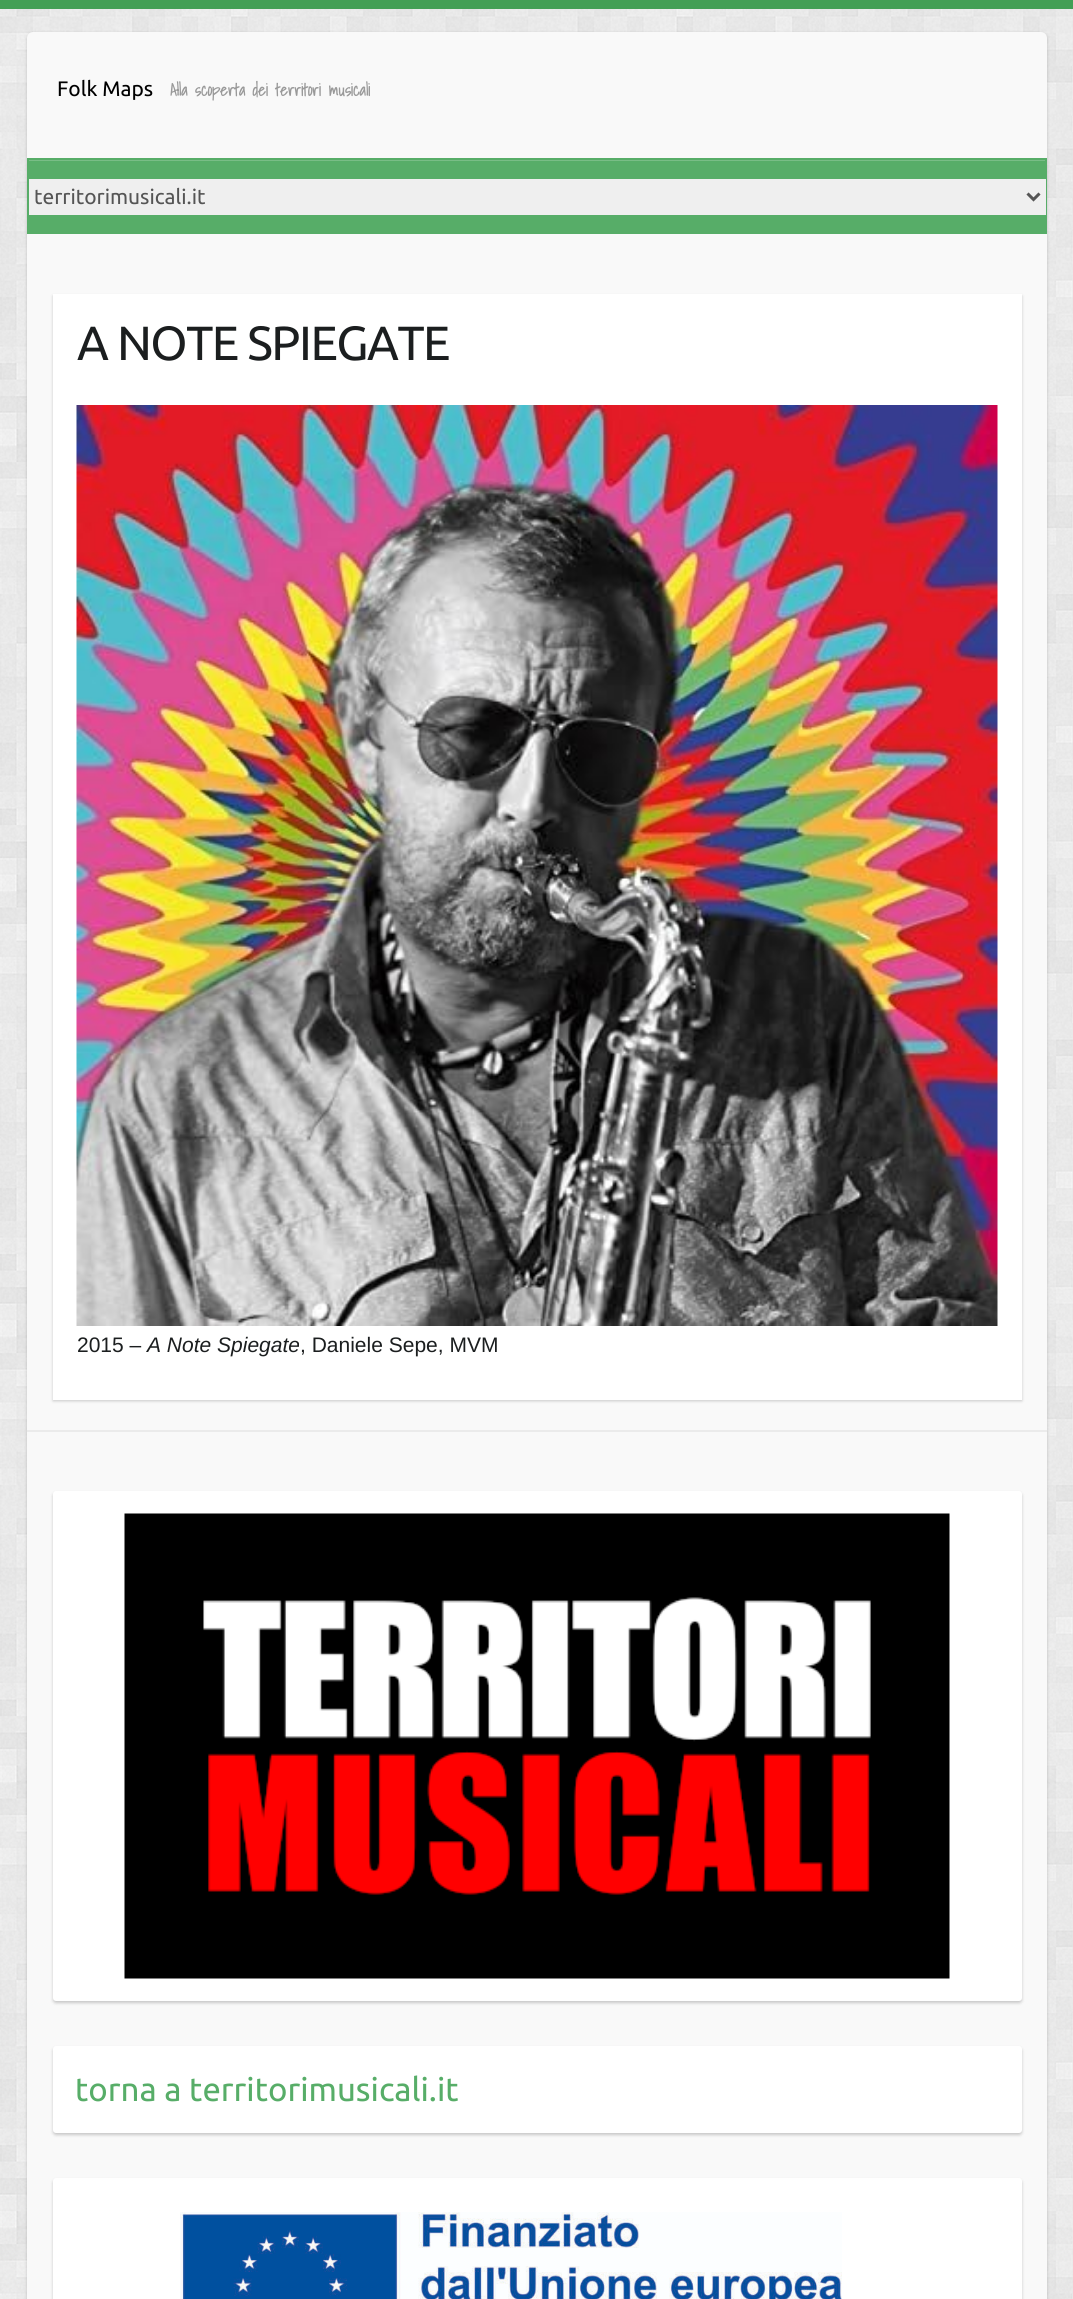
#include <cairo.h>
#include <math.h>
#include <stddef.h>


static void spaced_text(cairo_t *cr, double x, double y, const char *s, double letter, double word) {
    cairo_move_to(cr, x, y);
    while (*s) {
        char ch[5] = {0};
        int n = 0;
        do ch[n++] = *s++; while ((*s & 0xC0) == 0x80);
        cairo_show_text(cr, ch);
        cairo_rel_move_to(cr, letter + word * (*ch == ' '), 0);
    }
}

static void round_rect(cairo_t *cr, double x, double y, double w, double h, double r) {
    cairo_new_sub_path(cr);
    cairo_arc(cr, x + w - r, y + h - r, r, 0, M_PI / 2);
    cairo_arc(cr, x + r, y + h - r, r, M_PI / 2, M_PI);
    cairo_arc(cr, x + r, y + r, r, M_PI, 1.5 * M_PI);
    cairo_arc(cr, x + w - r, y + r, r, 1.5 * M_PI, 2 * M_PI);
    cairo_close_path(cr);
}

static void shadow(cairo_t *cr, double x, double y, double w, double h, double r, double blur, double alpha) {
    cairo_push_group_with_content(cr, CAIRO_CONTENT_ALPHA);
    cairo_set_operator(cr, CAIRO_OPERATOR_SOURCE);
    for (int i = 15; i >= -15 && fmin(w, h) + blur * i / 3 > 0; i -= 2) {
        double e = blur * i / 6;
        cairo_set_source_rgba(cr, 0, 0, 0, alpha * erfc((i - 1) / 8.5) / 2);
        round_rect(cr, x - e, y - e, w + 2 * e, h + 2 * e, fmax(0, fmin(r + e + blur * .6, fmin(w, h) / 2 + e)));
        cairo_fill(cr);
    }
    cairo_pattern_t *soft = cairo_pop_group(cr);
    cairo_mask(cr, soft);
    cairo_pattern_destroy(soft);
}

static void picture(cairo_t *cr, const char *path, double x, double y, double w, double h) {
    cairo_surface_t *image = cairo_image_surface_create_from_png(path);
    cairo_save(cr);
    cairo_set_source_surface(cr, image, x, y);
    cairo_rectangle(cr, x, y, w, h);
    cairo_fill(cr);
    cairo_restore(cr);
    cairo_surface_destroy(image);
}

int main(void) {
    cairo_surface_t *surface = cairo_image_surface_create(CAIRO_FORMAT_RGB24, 1073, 2299);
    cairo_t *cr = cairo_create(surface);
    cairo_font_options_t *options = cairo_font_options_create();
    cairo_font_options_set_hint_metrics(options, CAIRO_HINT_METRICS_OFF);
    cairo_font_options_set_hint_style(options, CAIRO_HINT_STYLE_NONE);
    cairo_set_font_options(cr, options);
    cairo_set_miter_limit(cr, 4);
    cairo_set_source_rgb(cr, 1, 1, 1);
    cairo_paint(cr);
    picture(cr, "img1.png", 0, 9, 1073, 2290);
    cairo_set_source_rgb(cr, 0.263, 0.624, 0.333);
    cairo_rectangle(cr, 0, 0, 1073, 9);
    cairo_fill(cr);
    cairo_set_source_rgb(cr, 0, 0, 0);
    shadow(cr, 27, 33, 1020, 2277, 6, 1.5, 0.2);
    cairo_set_source_rgb(cr, 0.973, 0.973, 0.973);
    round_rect(cr, 27, 32, 1020, 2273, 6);
    cairo_fill(cr);
    cairo_select_font_face(cr, "Ubuntu", CAIRO_FONT_SLANT_NORMAL, CAIRO_FONT_WEIGHT_NORMAL);
    cairo_set_font_size(cr, 21);
    cairo_set_source_rgb(cr, 0, 0, 0);
    cairo_move_to(cr, 57, 96);
    cairo_show_text(cr, "Folk Maps");
    cairo_select_font_face(cr, "Shadows Into Light", CAIRO_FONT_SLANT_NORMAL, CAIRO_FONT_WEIGHT_BOLD);
    cairo_set_font_size(cr, 16.75);
    cairo_set_source_rgb(cr, 0.6, 0.6, 0.6);
    cairo_move_to(cr, 170, 96);
    cairo_show_text(cr, "Alla scoperta dei territori musicali");
    cairo_set_source_rgb(cr, 0.341, 0.678, 0.408);
    cairo_rectangle(cr, 29, 161, 1016, 71);
    cairo_fill(cr);
    cairo_set_source_rgb(cr, 0.475, 0.741, 0.525);
    cairo_rectangle(cr, 29, 160, 1017, 1);
    cairo_fill(cr);
    cairo_rectangle(cr, 28, 159, 1018, 74);
    cairo_set_source_rgb(cr, 0.341, 0.678, 0.408);
    cairo_stroke(cr);
    cairo_set_source_rgb(cr, 0.937, 0.937, 0.937);
    cairo_rectangle(cr, 29, 179, 1017, 36);
    cairo_fill(cr);
    cairo_new_path(cr);
    cairo_move_to(cr, 1027.5, 193.5);
    cairo_line_to(cr, 1033.5, 199.5);
    cairo_line_to(cr, 1039.5, 193.5);
    cairo_set_source_rgb(cr, 0.333, 0.333, 0.333);
    cairo_set_line_width(cr, 3);
    cairo_stroke(cr);
    cairo_select_font_face(cr, "Ubuntu", CAIRO_FONT_SLANT_NORMAL, CAIRO_FONT_WEIGHT_NORMAL);
    cairo_set_font_size(cr, 21);
    cairo_move_to(cr, 34, 204);
    cairo_show_text(cr, "territorimusicali.it");
    cairo_set_source_rgb(cr, 0, 0, 0);
    shadow(cr, 53, 296, 969, 1105, 0, 1.5, 0.2);
    cairo_set_source_rgb(cr, 1, 1, 1);
    cairo_rectangle(cr, 53, 294, 969, 1106);
    cairo_fill(cr);
    cairo_set_font_size(cr, 48);
    cairo_set_source_rgb(cr, 0.106, 0.118, 0.122);
    spaced_text(cr, 77, 360, "A NOTE SPIEGATE", -1.5, 0);
    picture(cr, "img2.png", 76, 405, 922, 921);
    cairo_select_font_face(cr, "Liberation Sans", CAIRO_FONT_SLANT_NORMAL, CAIRO_FONT_WEIGHT_NORMAL);
    cairo_set_font_size(cr, 21);
    cairo_move_to(cr, 77, 1352);
    cairo_show_text(cr, "2015 –");
    cairo_select_font_face(cr, "Liberation Sans", CAIRO_FONT_SLANT_ITALIC, CAIRO_FONT_WEIGHT_NORMAL);
    cairo_move_to(cr, 147, 1352);
    cairo_show_text(cr, "A Note Spiegate");
    cairo_select_font_face(cr, "Liberation Sans", CAIRO_FONT_SLANT_NORMAL, CAIRO_FONT_WEIGHT_NORMAL);
    cairo_move_to(cr, 300, 1352);
    cairo_show_text(cr, ", Daniele Sepe, MVM");
    cairo_set_source_rgb(cr, 0.918, 0.918, 0.918);
    cairo_rectangle(cr, 27, 1430, 1020, 2);
    cairo_fill(cr);
    cairo_set_source_rgb(cr, 0, 0, 0);
    shadow(cr, 53, 1493, 969, 510, 3, 1.5, 0.2);
    cairo_set_source_rgb(cr, 1, 1, 1);
    round_rect(cr, 53, 1491, 969, 510, 3);
    cairo_fill(cr);
    picture(cr, "img3.png", 124, 1513, 826, 466);
    cairo_set_source_rgb(cr, 0, 0, 0);
    shadow(cr, 53, 2048, 969, 87, 3, 1.5, 0.2);
    cairo_set_source_rgb(cr, 1, 1, 1);
    round_rect(cr, 53, 2046, 969, 87, 3);
    cairo_fill(cr);
    cairo_select_font_face(cr, "Ubuntu", CAIRO_FONT_SLANT_NORMAL, CAIRO_FONT_WEIGHT_NORMAL);
    cairo_set_font_size(cr, 33);
    cairo_set_source_rgb(cr, 0.341, 0.678, 0.408);
    cairo_move_to(cr, 75, 2101);
    cairo_show_text(cr, "torna a territorimusicali.it");
    cairo_set_source_rgb(cr, 0, 0, 0);
    shadow(cr, 53, 2180, 969, 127, 3, 1.5, 0.2);
    cairo_set_source_rgb(cr, 1, 1, 1);
    round_rect(cr, 53, 2178, 969, 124, 3);
    cairo_fill(cr);
    picture(cr, "img4.png", 180, 2212, 662, 87);
    cairo_surface_write_to_png(surface, "page.png");
    cairo_font_options_destroy(options);
    cairo_destroy(cr);
    cairo_surface_destroy(surface);
    return 0;
}
